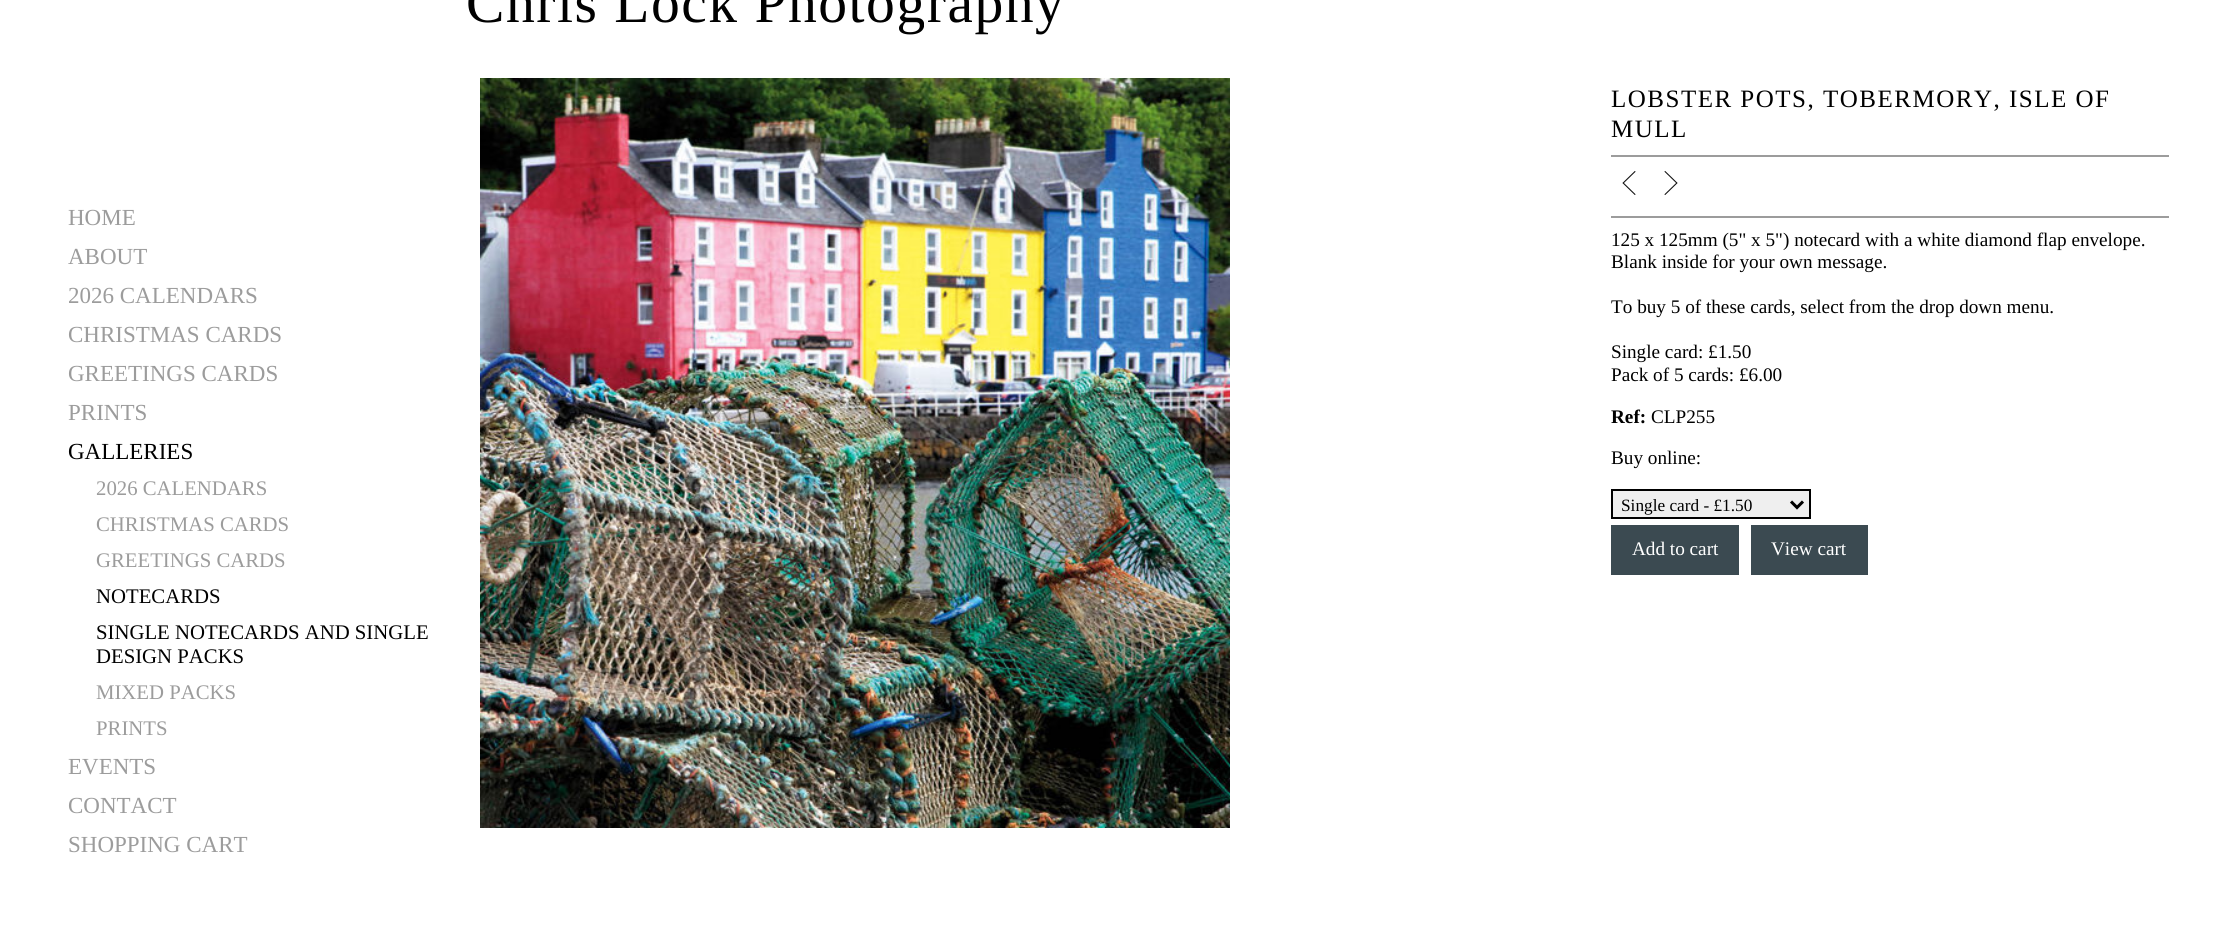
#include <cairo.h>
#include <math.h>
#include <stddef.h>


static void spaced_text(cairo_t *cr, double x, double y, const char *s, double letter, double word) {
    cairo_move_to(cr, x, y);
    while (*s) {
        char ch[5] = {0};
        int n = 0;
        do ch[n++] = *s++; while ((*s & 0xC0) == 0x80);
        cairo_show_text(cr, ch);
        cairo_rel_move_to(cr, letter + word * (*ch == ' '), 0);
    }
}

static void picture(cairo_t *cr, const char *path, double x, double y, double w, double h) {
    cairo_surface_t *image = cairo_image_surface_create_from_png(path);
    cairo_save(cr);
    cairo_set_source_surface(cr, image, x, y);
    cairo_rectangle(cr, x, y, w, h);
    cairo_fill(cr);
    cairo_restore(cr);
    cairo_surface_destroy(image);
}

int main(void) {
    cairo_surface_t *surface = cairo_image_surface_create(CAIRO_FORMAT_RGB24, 2236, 943);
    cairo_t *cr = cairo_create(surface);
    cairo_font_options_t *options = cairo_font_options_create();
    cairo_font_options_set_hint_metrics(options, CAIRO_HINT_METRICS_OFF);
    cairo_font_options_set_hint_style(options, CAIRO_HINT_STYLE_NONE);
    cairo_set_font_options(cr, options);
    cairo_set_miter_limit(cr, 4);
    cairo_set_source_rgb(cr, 1, 1, 1);
    cairo_paint(cr);
    cairo_select_font_face(cr, "Liberation Serif", CAIRO_FONT_SLANT_NORMAL, CAIRO_FONT_WEIGHT_NORMAL);
    cairo_set_font_size(cr, 57.6);
    cairo_set_source_rgb(cr, 0, 0, 0);
    spaced_text(cr, 466, 22, "Chris Lock Photography", 1.5, 0);
    cairo_set_font_size(cr, 23);
    cairo_set_source_rgb(cr, 0.612, 0.612, 0.612);
    cairo_move_to(cr, 68, 225);
    cairo_show_text(cr, "HOME");
    cairo_move_to(cr, 68, 264);
    cairo_show_text(cr, "ABOUT");
    cairo_move_to(cr, 68, 303);
    cairo_show_text(cr, "2026 CALENDARS");
    cairo_move_to(cr, 68, 342);
    cairo_show_text(cr, "CHRISTMAS CARDS");
    cairo_move_to(cr, 68, 381);
    cairo_show_text(cr, "GREETINGS CARDS");
    cairo_move_to(cr, 68, 420);
    cairo_show_text(cr, "PRINTS");
    cairo_set_source_rgb(cr, 0, 0, 0);
    cairo_move_to(cr, 68, 459);
    cairo_show_text(cr, "GALLERIES");
    cairo_set_source_rgb(cr, 0.612, 0.612, 0.612);
    cairo_move_to(cr, 68, 774);
    cairo_show_text(cr, "EVENTS");
    cairo_move_to(cr, 68, 813);
    cairo_show_text(cr, "CONTACT");
    cairo_move_to(cr, 68, 852);
    cairo_show_text(cr, "SHOPPING CART");
    picture(cr, "img1.png", 480, 78, 750, 750);
    cairo_set_font_size(cr, 25);
    cairo_set_source_rgb(cr, 0, 0, 0);
    spaced_text(cr, 1611, 107, "LOBSTER POTS, TOBERMORY, ISLE OF", 1.5, 0);
    spaced_text(cr, 1611, 137, "MULL", 1.5, 0);
    cairo_set_source_rgb(cr, 0.612, 0.612, 0.612);
    cairo_rectangle(cr, 1611, 155, 558, 2);
    cairo_fill(cr);
    cairo_rectangle(cr, 1611, 216, 558, 2);
    cairo_fill(cr);
    picture(cr, "img2.png", 1622, 171, 14, 24);
    picture(cr, "img3.png", 1664, 171, 14, 24);
    cairo_set_font_size(cr, 19.2);
    cairo_set_source_rgb(cr, 0, 0, 0);
    cairo_move_to(cr, 1611, 246);
    cairo_show_text(cr, "125 x 125mm (5\" x 5\") notecard with a white diamond flap envelope.");
    cairo_move_to(cr, 1611, 268);
    cairo_show_text(cr, "Blank inside for your own message.");
    cairo_move_to(cr, 1611, 313);
    cairo_show_text(cr, "To buy 5 of these cards, select from the drop down menu.");
    cairo_move_to(cr, 1611, 358);
    cairo_show_text(cr, "Single card: £1.50");
    cairo_move_to(cr, 1611, 381);
    cairo_show_text(cr, "Pack of 5 cards: £6.00");
    cairo_select_font_face(cr, "Liberation Serif", CAIRO_FONT_SLANT_NORMAL, CAIRO_FONT_WEIGHT_BOLD);
    cairo_move_to(cr, 1611, 423);
    cairo_show_text(cr, "Ref:");
    cairo_select_font_face(cr, "Liberation Serif", CAIRO_FONT_SLANT_NORMAL, CAIRO_FONT_WEIGHT_NORMAL);
    cairo_move_to(cr, 1651, 423);
    cairo_show_text(cr, "CLP255");
    cairo_move_to(cr, 1611, 464);
    cairo_show_text(cr, "Buy online:");
    cairo_set_source_rgb(cr, 0.937, 0.937, 0.937);
    cairo_rectangle(cr, 1612, 490, 198, 28);
    cairo_fill_preserve(cr);
    cairo_set_source_rgb(cr, 0, 0, 0);
    cairo_stroke(cr);
    cairo_new_path(cr);
    cairo_move_to(cr, 1791, 501.5);
    cairo_line_to(cr, 1797, 507.5);
    cairo_line_to(cr, 1803, 501.5);
    cairo_set_line_width(cr, 3);
    cairo_stroke(cr);
    cairo_set_font_size(cr, 17.25);
    cairo_move_to(cr, 1621, 511);
    cairo_show_text(cr, "Single card - £1.50");
    cairo_set_source_rgb(cr, 0.231, 0.29, 0.318);
    cairo_rectangle(cr, 1611, 525, 128, 50);
    cairo_fill(cr);
    cairo_set_font_size(cr, 19.2);
    cairo_set_source_rgb(cr, 1, 1, 1);
    cairo_move_to(cr, 1632, 555);
    cairo_show_text(cr, "Add to cart");
    cairo_set_source_rgb(cr, 0.231, 0.29, 0.318);
    cairo_rectangle(cr, 1751, 525, 117, 50);
    cairo_fill(cr);
    cairo_set_source_rgb(cr, 1, 1, 1);
    cairo_move_to(cr, 1771, 555);
    cairo_show_text(cr, "View cart");
    cairo_set_font_size(cr, 20.75);
    cairo_set_source_rgb(cr, 0.612, 0.612, 0.612);
    cairo_move_to(cr, 96, 495);
    cairo_show_text(cr, "2026 CALENDARS");
    cairo_move_to(cr, 96, 531);
    cairo_show_text(cr, "CHRISTMAS CARDS");
    cairo_move_to(cr, 96, 567);
    cairo_show_text(cr, "GREETINGS CARDS");
    cairo_set_source_rgb(cr, 0, 0, 0);
    cairo_move_to(cr, 96, 603);
    cairo_show_text(cr, "NOTECARDS");
    cairo_set_source_rgb(cr, 0.612, 0.612, 0.612);
    cairo_move_to(cr, 96, 735);
    cairo_show_text(cr, "PRINTS");
    cairo_set_source_rgb(cr, 0, 0, 0);
    cairo_move_to(cr, 96, 639);
    cairo_show_text(cr, "SINGLE NOTECARDS AND SINGLE");
    cairo_move_to(cr, 96, 663);
    cairo_show_text(cr, "DESIGN PACKS");
    cairo_set_source_rgb(cr, 0.612, 0.612, 0.612);
    cairo_move_to(cr, 96, 699);
    cairo_show_text(cr, "MIXED PACKS");
    cairo_surface_write_to_png(surface, "page.png");
    cairo_font_options_destroy(options);
    cairo_destroy(cr);
    cairo_surface_destroy(surface);
    return 0;
}
